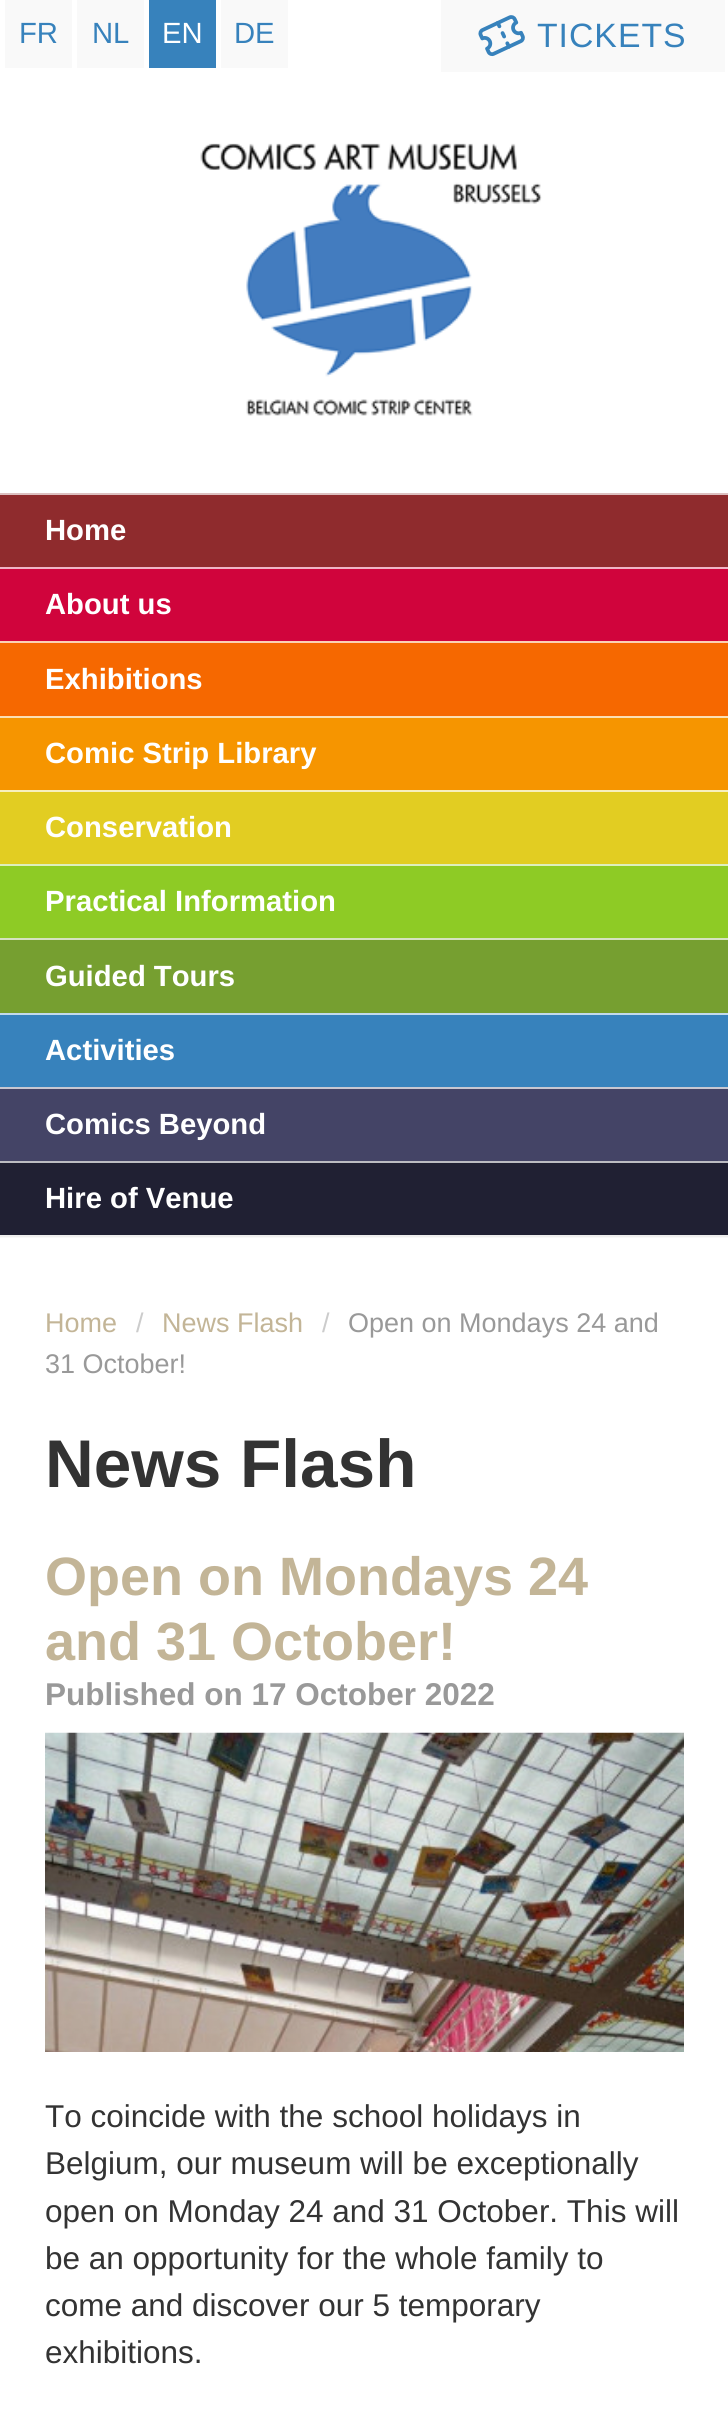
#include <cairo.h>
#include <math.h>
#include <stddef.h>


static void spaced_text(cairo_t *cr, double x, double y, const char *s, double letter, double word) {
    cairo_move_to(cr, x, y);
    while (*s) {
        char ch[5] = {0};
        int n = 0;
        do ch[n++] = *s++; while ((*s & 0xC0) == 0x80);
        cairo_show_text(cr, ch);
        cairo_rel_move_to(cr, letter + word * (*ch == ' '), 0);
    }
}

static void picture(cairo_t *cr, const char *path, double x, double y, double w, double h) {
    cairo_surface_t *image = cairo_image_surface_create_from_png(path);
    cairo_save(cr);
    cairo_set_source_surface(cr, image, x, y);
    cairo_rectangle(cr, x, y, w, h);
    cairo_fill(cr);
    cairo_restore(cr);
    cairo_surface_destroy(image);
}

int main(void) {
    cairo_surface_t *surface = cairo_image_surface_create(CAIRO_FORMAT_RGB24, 728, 2435);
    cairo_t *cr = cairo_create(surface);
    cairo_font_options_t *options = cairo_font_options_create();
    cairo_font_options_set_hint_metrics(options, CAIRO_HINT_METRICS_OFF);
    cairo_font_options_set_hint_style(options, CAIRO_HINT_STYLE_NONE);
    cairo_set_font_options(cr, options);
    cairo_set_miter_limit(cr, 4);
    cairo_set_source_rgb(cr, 1, 1, 1);
    cairo_paint(cr);
    cairo_set_source_rgb(cr, 0.976, 0.976, 0.976);
    cairo_rectangle(cr, 5, 0, 67, 68);
    cairo_fill(cr);
    cairo_select_font_face(cr, "Liberation Sans", CAIRO_FONT_SLANT_NORMAL, CAIRO_FONT_WEIGHT_NORMAL);
    cairo_set_font_size(cr, 29.25);
    cairo_set_source_rgb(cr, 0.216, 0.51, 0.737);
    cairo_move_to(cr, 19, 43);
    cairo_show_text(cr, "FR");
    cairo_set_source_rgb(cr, 0.976, 0.976, 0.976);
    cairo_rectangle(cr, 77, 0, 67, 68);
    cairo_fill(cr);
    cairo_set_source_rgb(cr, 0.216, 0.51, 0.737);
    cairo_move_to(cr, 92, 43);
    cairo_show_text(cr, "NL");
    cairo_rectangle(cr, 149, 0, 67, 68);
    cairo_fill(cr);
    cairo_set_source_rgb(cr, 1, 1, 1);
    cairo_move_to(cr, 162, 43);
    cairo_show_text(cr, "EN");
    cairo_set_source_rgb(cr, 0.976, 0.976, 0.976);
    cairo_rectangle(cr, 221, 0, 67, 68);
    cairo_fill(cr);
    cairo_set_source_rgb(cr, 0.216, 0.51, 0.737);
    cairo_move_to(cr, 234, 43);
    cairo_show_text(cr, "DE");
    cairo_set_source_rgb(cr, 0.976, 0.976, 0.976);
    cairo_rectangle(cr, 441, 0, 284, 72);
    cairo_fill(cr);
    picture(cr, "img1.png", 478, 15, 47, 42);
    cairo_set_font_size(cr, 33.75);
    cairo_set_source_rgb(cr, 0.216, 0.51, 0.737);
    spaced_text(cr, 537, 47, "TICKETS", 1, 0);
    picture(cr, "img2.png", 200, 143, 342, 273);
    cairo_set_source_rgb(cr, 0.969, 0.969, 0.969);
    cairo_rectangle(cr, 0, 1237, 728, 1);
    cairo_fill(cr);
    cairo_set_source_rgb(cr, 0.933, 0.933, 0.933);
    cairo_rectangle(cr, 0, 1235, 728, 2);
    cairo_fill(cr);
    cairo_set_source_rgb(cr, 0.561, 0.169, 0.176);
    cairo_rectangle(cr, 0, 495, 728, 72);
    cairo_fill(cr);
    cairo_set_source_rgb(cr, 0.867, 0.749, 0.753);
    cairo_rectangle(cr, 0, 493, 728, 2);
    cairo_fill(cr);
    cairo_select_font_face(cr, "Liberation Sans", CAIRO_FONT_SLANT_NORMAL, CAIRO_FONT_WEIGHT_BOLD);
    cairo_set_font_size(cr, 29.25);
    cairo_set_source_rgb(cr, 1, 1, 1);
    cairo_move_to(cr, 45, 540);
    cairo_show_text(cr, "Home");
    cairo_set_source_rgb(cr, 0.816, 0.016, 0.235);
    cairo_rectangle(cr, 0, 569, 728, 72);
    cairo_fill(cr);
    cairo_set_source_rgb(cr, 0.945, 0.706, 0.773);
    cairo_rectangle(cr, 0, 567, 728, 2);
    cairo_fill(cr);
    cairo_set_source_rgb(cr, 1, 1, 1);
    cairo_move_to(cr, 45, 614);
    cairo_show_text(cr, "About us");
    cairo_set_source_rgb(cr, 0.961, 0.408, 0);
    cairo_rectangle(cr, 0, 643, 728, 73);
    cairo_fill(cr);
    cairo_set_source_rgb(cr, 0.988, 0.824, 0.702);
    cairo_rectangle(cr, 0, 641, 728, 2);
    cairo_fill(cr);
    cairo_set_source_rgb(cr, 1, 1, 1);
    cairo_move_to(cr, 45, 689);
    cairo_show_text(cr, "Exhibitions");
    cairo_set_source_rgb(cr, 0.961, 0.584, 0);
    cairo_rectangle(cr, 0, 718, 728, 72);
    cairo_fill(cr);
    cairo_set_source_rgb(cr, 0.988, 0.875, 0.702);
    cairo_rectangle(cr, 0, 716, 728, 2);
    cairo_fill(cr);
    cairo_set_source_rgb(cr, 1, 1, 1);
    cairo_move_to(cr, 45, 763);
    cairo_show_text(cr, "Comic Strip Library");
    cairo_set_source_rgb(cr, 0.886, 0.804, 0.133);
    cairo_rectangle(cr, 0, 792, 728, 72);
    cairo_fill(cr);
    cairo_set_source_rgb(cr, 0.965, 0.941, 0.741);
    cairo_rectangle(cr, 0, 790, 728, 2);
    cairo_fill(cr);
    cairo_set_source_rgb(cr, 1, 1, 1);
    cairo_move_to(cr, 45, 837);
    cairo_show_text(cr, "Conservation");
    cairo_set_source_rgb(cr, 0.557, 0.796, 0.145);
    cairo_rectangle(cr, 0, 866, 728, 72);
    cairo_fill(cr);
    cairo_set_source_rgb(cr, 0.867, 0.937, 0.745);
    cairo_rectangle(cr, 0, 864, 728, 2);
    cairo_fill(cr);
    cairo_set_source_rgb(cr, 1, 1, 1);
    cairo_move_to(cr, 45, 911);
    cairo_show_text(cr, "Practical Information");
    cairo_set_source_rgb(cr, 0.463, 0.624, 0.188);
    cairo_rectangle(cr, 0, 940, 728, 73);
    cairo_fill(cr);
    cairo_set_source_rgb(cr, 0.839, 0.886, 0.757);
    cairo_rectangle(cr, 0, 938, 728, 2);
    cairo_fill(cr);
    cairo_set_source_rgb(cr, 1, 1, 1);
    cairo_move_to(cr, 45, 986);
    cairo_show_text(cr, "Guided Tours");
    cairo_set_source_rgb(cr, 0.216, 0.51, 0.737);
    cairo_rectangle(cr, 0, 1015, 728, 72);
    cairo_fill(cr);
    cairo_set_source_rgb(cr, 0.765, 0.855, 0.922);
    cairo_rectangle(cr, 0, 1013, 728, 2);
    cairo_fill(cr);
    cairo_set_source_rgb(cr, 1, 1, 1);
    cairo_move_to(cr, 45, 1060);
    cairo_show_text(cr, "Activities");
    cairo_set_source_rgb(cr, 0.267, 0.267, 0.4);
    cairo_rectangle(cr, 0, 1089, 728, 72);
    cairo_fill(cr);
    cairo_set_source_rgb(cr, 0.78, 0.78, 0.82);
    cairo_rectangle(cr, 0, 1087, 728, 2);
    cairo_fill(cr);
    cairo_set_source_rgb(cr, 1, 1, 1);
    cairo_move_to(cr, 45, 1134);
    cairo_show_text(cr, "Comics Beyond");
    cairo_set_source_rgb(cr, 0.125, 0.125, 0.2);
    cairo_rectangle(cr, 0, 1163, 728, 72);
    cairo_fill(cr);
    cairo_set_source_rgb(cr, 0.737, 0.737, 0.761);
    cairo_rectangle(cr, 0, 1161, 728, 2);
    cairo_fill(cr);
    cairo_set_source_rgb(cr, 1, 1, 1);
    cairo_move_to(cr, 45, 1208);
    cairo_show_text(cr, "Hire of Venue");
    cairo_select_font_face(cr, "Liberation Sans", CAIRO_FONT_SLANT_NORMAL, CAIRO_FONT_WEIGHT_NORMAL);
    cairo_set_font_size(cr, 27);
    cairo_set_source_rgb(cr, 0.765, 0.71, 0.592);
    cairo_move_to(cr, 45, 1332);
    cairo_show_text(cr, "Home");
    cairo_set_source_rgb(cr, 0.8, 0.8, 0.8);
    cairo_move_to(cr, 136, 1332);
    cairo_show_text(cr, "/");
    cairo_set_source_rgb(cr, 0.765, 0.71, 0.592);
    cairo_move_to(cr, 162, 1332);
    cairo_show_text(cr, "News Flash");
    cairo_set_source_rgb(cr, 0.8, 0.8, 0.8);
    cairo_move_to(cr, 322, 1332);
    cairo_show_text(cr, "/");
    cairo_set_source_rgb(cr, 0.6, 0.6, 0.6);
    cairo_move_to(cr, 348, 1332);
    cairo_show_text(cr, "Open on Mondays 24 and");
    cairo_move_to(cr, 45, 1373);
    cairo_show_text(cr, "31 October!");
    cairo_select_font_face(cr, "Liberation Sans", CAIRO_FONT_SLANT_NORMAL, CAIRO_FONT_WEIGHT_BOLD);
    cairo_set_font_size(cr, 67.5);
    cairo_set_source_rgb(cr, 0.2, 0.2, 0.2);
    cairo_move_to(cr, 45, 1487);
    cairo_show_text(cr, "News Flash");
    cairo_set_font_size(cr, 54);
    cairo_set_source_rgb(cr, 0.765, 0.71, 0.592);
    cairo_move_to(cr, 45, 1595);
    cairo_show_text(cr, "Open on Mondays 24");
    cairo_move_to(cr, 45, 1660);
    cairo_show_text(cr, "and 31 October!");
    cairo_set_font_size(cr, 31.5);
    cairo_set_source_rgb(cr, 0.6, 0.6, 0.6);
    cairo_move_to(cr, 45, 1705);
    cairo_show_text(cr, "Published on 17 October 2022");
    picture(cr, "img3.png", 45, 1732, 639, 320);
    cairo_select_font_face(cr, "Liberation Sans", CAIRO_FONT_SLANT_NORMAL, CAIRO_FONT_WEIGHT_NORMAL);
    cairo_set_source_rgb(cr, 0.2, 0.2, 0.2);
    cairo_move_to(cr, 45, 2127);
    cairo_show_text(cr, "To coincide with the school holidays in");
    cairo_move_to(cr, 45, 2174);
    cairo_show_text(cr, "Belgium, our museum will be exceptionally");
    cairo_move_to(cr, 45, 2222);
    cairo_show_text(cr, "open on Monday 24 and 31 October. This will");
    cairo_move_to(cr, 45, 2269);
    cairo_show_text(cr, "be an opportunity for the whole family to");
    cairo_move_to(cr, 45, 2316);
    cairo_show_text(cr, "come and discover our 5 temporary");
    cairo_move_to(cr, 45, 2363);
    cairo_show_text(cr, "exhibitions.");
    cairo_surface_write_to_png(surface, "page.png");
    cairo_font_options_destroy(options);
    cairo_destroy(cr);
    cairo_surface_destroy(surface);
    return 0;
}
